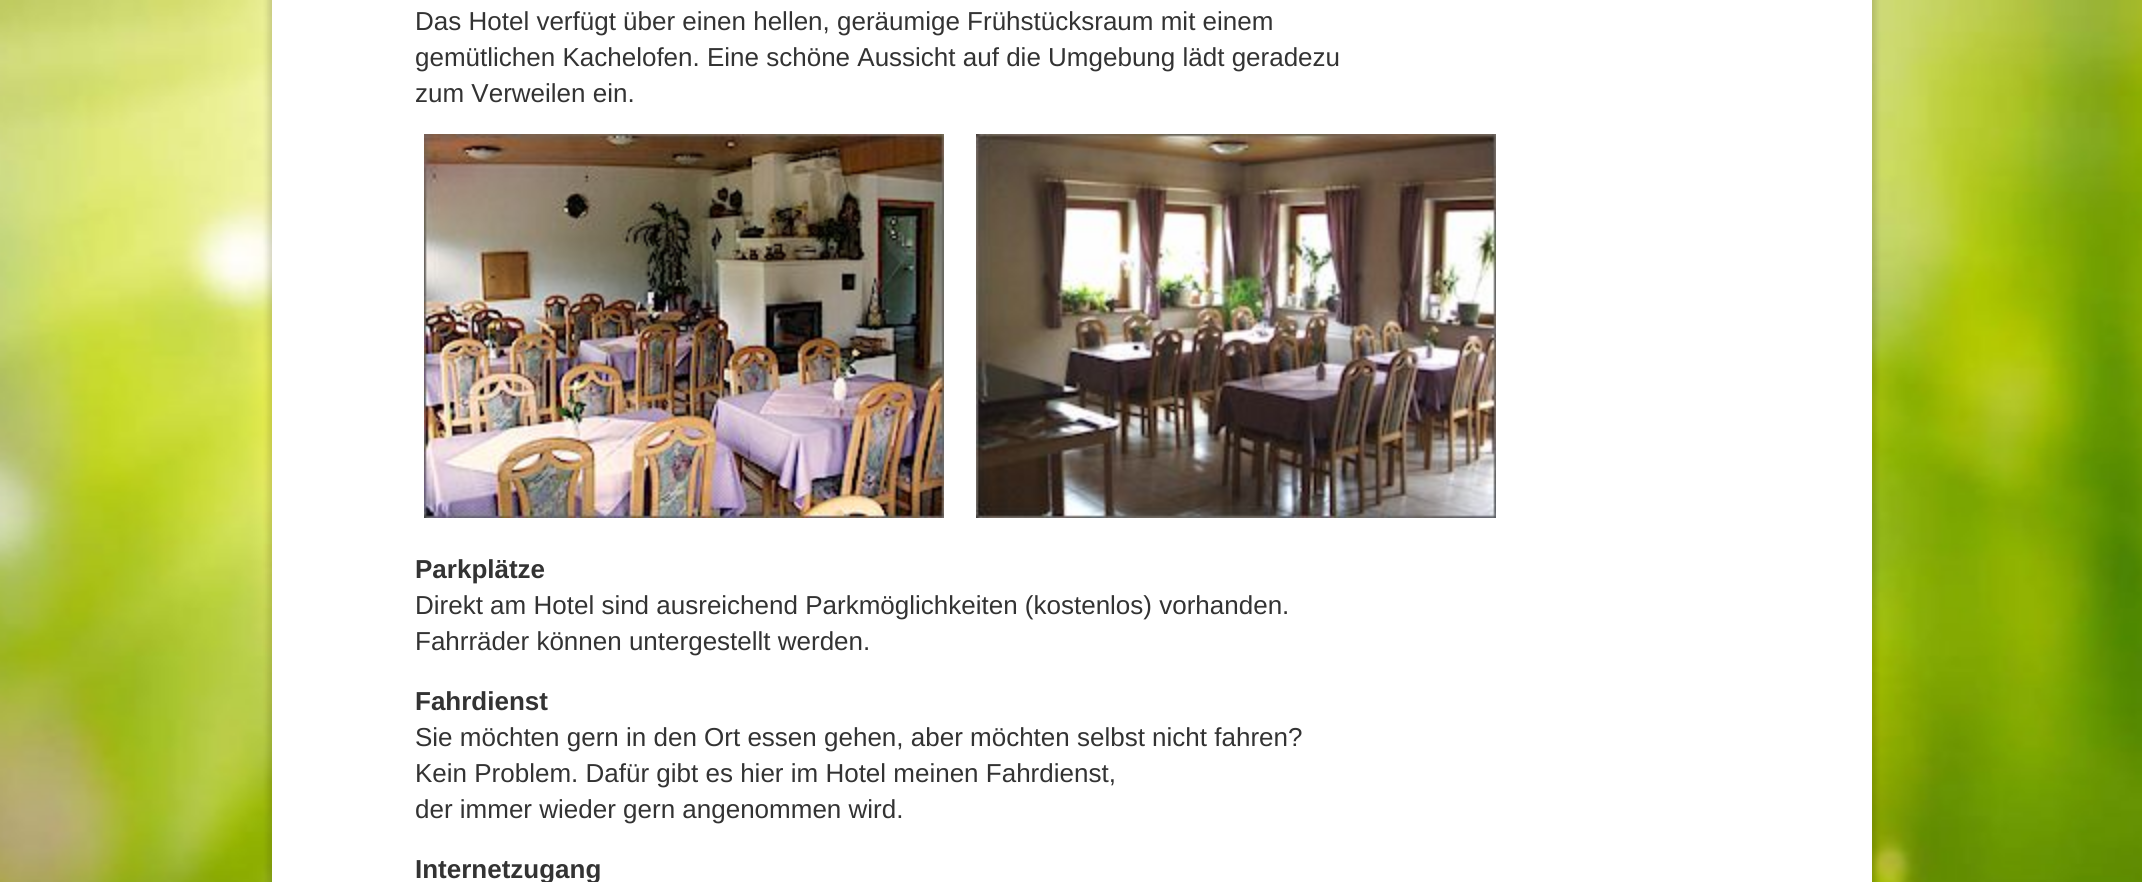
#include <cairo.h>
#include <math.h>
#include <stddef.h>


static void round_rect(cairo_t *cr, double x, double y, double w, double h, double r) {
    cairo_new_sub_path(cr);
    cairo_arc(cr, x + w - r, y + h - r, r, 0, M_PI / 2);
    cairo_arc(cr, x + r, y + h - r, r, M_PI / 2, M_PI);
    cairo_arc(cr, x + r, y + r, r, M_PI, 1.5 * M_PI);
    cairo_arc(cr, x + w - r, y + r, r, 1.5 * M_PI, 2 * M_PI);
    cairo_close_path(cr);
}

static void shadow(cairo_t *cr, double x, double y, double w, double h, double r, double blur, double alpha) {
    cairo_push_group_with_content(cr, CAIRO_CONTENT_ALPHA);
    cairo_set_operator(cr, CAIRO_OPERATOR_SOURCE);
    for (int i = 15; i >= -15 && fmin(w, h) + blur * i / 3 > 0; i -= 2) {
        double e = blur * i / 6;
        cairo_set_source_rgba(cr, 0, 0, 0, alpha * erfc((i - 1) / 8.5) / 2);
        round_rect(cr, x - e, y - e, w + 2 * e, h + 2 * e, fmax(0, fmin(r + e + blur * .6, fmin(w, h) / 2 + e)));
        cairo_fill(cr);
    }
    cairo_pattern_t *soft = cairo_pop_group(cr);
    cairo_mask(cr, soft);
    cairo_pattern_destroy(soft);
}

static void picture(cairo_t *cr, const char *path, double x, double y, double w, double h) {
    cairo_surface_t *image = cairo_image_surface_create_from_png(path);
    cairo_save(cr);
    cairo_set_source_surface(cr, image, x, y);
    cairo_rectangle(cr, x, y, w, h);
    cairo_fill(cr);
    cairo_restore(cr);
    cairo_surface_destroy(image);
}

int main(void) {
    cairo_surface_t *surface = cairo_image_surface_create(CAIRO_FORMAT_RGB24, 2142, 882);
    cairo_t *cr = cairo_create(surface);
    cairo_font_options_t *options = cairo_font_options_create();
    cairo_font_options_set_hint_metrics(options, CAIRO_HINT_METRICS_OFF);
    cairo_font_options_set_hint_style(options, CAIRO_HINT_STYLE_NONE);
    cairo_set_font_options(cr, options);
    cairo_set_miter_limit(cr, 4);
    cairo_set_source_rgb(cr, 1, 1, 1);
    cairo_paint(cr);
    picture(cr, "img1.png", 0, 0, 2142, 882);
    cairo_set_source_rgb(cr, 0, 0, 0);
    shadow(cr, 268, -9, 1608, 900, 0, 3, 0.15);
    cairo_set_source_rgb(cr, 1, 1, 1);
    cairo_rectangle(cr, 272, 0, 1600, 882);
    cairo_fill(cr);
    cairo_select_font_face(cr, "Liberation Sans", CAIRO_FONT_SLANT_NORMAL, CAIRO_FONT_WEIGHT_NORMAL);
    cairo_set_font_size(cr, 26);
    cairo_set_source_rgb(cr, 0.2, 0.2, 0.2);
    cairo_move_to(cr, 415, 30);
    cairo_show_text(cr, "Das Hotel verfügt über einen hellen, geräumige Frühstücksraum mit einem");
    cairo_move_to(cr, 415, 66);
    cairo_show_text(cr, "gemütlichen Kachelofen. Eine schöne Aussicht auf die Umgebung lädt geradezu");
    cairo_move_to(cr, 415, 102);
    cairo_show_text(cr, "zum Verweilen ein.");
    picture(cr, "img2.png", 424, 134, 520, 384);
    picture(cr, "img3.png", 976, 134, 520, 384);
    cairo_select_font_face(cr, "Liberation Sans", CAIRO_FONT_SLANT_NORMAL, CAIRO_FONT_WEIGHT_BOLD);
    cairo_move_to(cr, 415, 578);
    cairo_show_text(cr, "Parkplätze");
    cairo_select_font_face(cr, "Liberation Sans", CAIRO_FONT_SLANT_NORMAL, CAIRO_FONT_WEIGHT_NORMAL);
    cairo_move_to(cr, 415, 614);
    cairo_show_text(cr, "Direkt am Hotel sind ausreichend Parkmöglichkeiten (kostenlos) vorhanden.");
    cairo_move_to(cr, 415, 650);
    cairo_show_text(cr, "Fahrräder können untergestellt werden.");
    cairo_select_font_face(cr, "Liberation Sans", CAIRO_FONT_SLANT_NORMAL, CAIRO_FONT_WEIGHT_BOLD);
    cairo_move_to(cr, 415, 710);
    cairo_show_text(cr, "Fahrdienst");
    cairo_select_font_face(cr, "Liberation Sans", CAIRO_FONT_SLANT_NORMAL, CAIRO_FONT_WEIGHT_NORMAL);
    cairo_move_to(cr, 415, 746);
    cairo_show_text(cr, "Sie möchten gern in den Ort essen gehen, aber möchten selbst nicht fahren?");
    cairo_move_to(cr, 415, 782);
    cairo_show_text(cr, "Kein Problem. Dafür gibt es hier im Hotel meinen Fahrdienst,");
    cairo_move_to(cr, 415, 818);
    cairo_show_text(cr, "der immer wieder gern angenommen wird.");
    cairo_select_font_face(cr, "Liberation Sans", CAIRO_FONT_SLANT_NORMAL, CAIRO_FONT_WEIGHT_BOLD);
    cairo_move_to(cr, 415, 878);
    cairo_show_text(cr, "Internetzugang");
    cairo_surface_write_to_png(surface, "page.png");
    cairo_font_options_destroy(options);
    cairo_destroy(cr);
    cairo_surface_destroy(surface);
    return 0;
}
